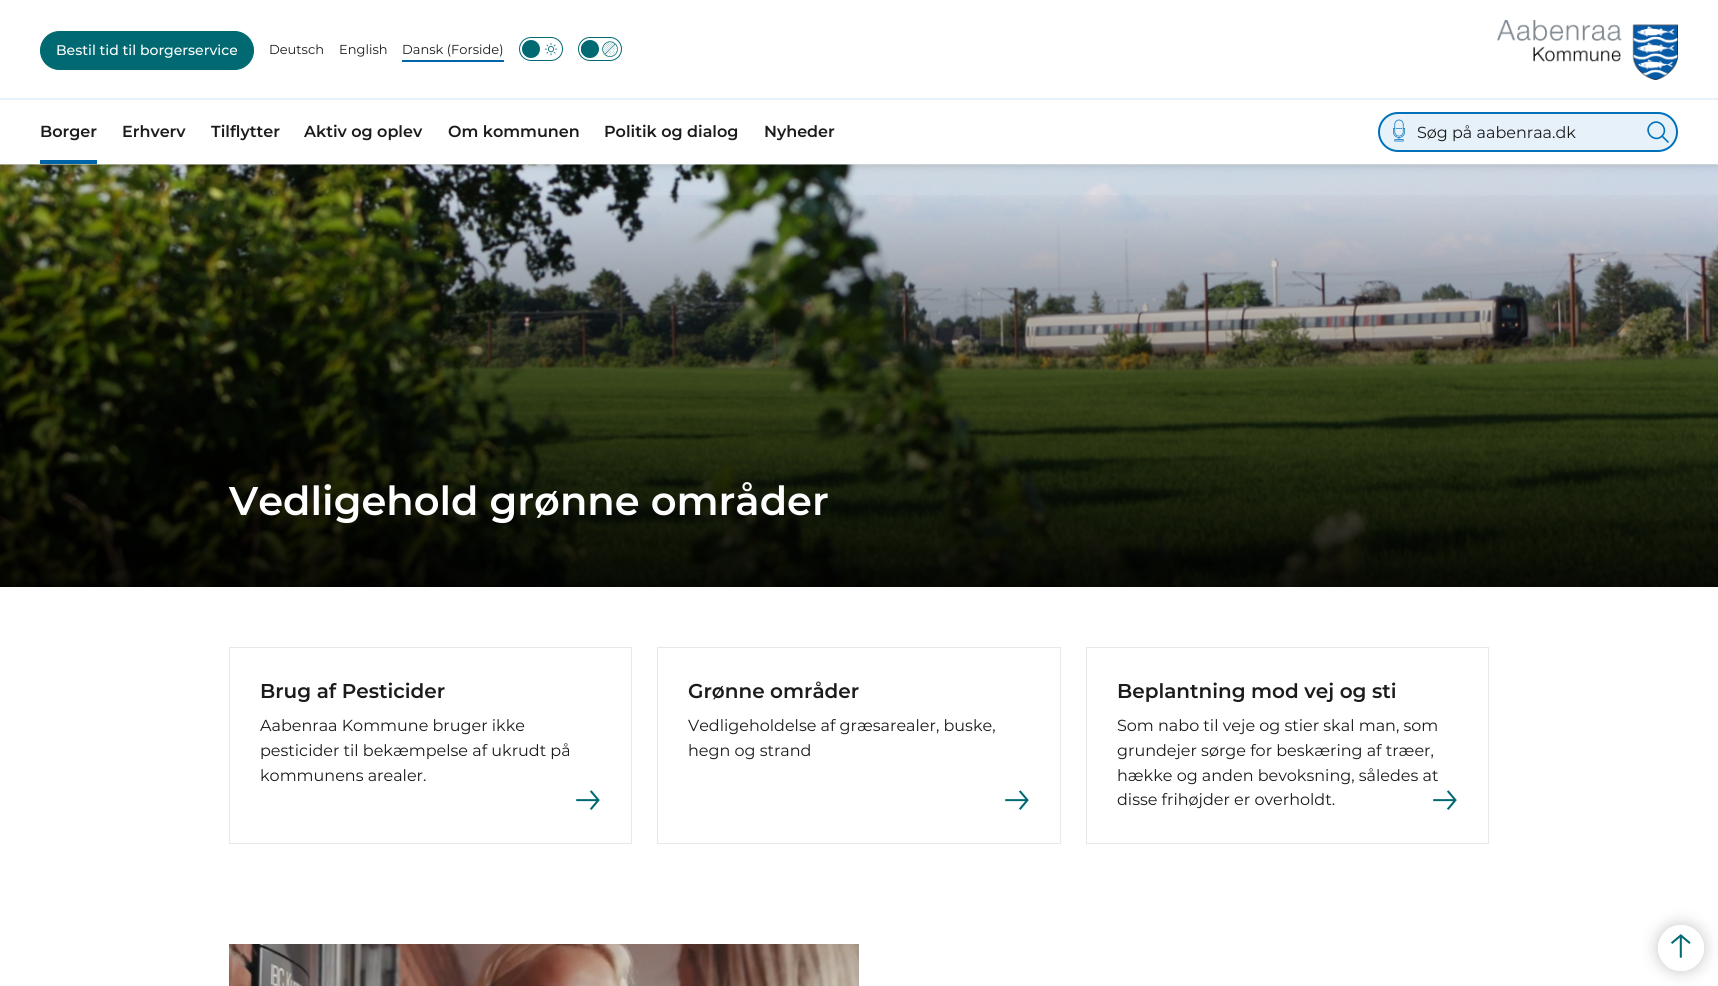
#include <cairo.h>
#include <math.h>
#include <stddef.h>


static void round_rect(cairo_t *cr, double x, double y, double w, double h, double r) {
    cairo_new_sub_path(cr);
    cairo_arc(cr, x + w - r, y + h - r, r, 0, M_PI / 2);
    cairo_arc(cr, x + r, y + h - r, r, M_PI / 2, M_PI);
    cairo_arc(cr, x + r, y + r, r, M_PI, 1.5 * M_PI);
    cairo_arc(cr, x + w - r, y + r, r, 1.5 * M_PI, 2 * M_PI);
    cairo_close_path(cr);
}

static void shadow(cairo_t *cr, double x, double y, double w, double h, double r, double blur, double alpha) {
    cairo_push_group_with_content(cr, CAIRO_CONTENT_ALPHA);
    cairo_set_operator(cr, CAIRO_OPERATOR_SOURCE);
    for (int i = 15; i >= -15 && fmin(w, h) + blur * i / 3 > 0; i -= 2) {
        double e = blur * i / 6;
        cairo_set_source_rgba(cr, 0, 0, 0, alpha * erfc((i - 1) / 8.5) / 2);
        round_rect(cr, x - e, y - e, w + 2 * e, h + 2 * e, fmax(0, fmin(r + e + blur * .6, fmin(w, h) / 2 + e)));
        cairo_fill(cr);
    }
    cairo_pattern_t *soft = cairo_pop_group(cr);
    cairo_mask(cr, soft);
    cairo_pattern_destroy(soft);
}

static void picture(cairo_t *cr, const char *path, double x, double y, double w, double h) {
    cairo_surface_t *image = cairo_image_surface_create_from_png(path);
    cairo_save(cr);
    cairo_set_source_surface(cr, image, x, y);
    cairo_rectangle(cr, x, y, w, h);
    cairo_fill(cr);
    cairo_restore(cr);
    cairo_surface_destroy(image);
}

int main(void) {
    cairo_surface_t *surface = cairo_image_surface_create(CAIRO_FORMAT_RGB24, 1718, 986);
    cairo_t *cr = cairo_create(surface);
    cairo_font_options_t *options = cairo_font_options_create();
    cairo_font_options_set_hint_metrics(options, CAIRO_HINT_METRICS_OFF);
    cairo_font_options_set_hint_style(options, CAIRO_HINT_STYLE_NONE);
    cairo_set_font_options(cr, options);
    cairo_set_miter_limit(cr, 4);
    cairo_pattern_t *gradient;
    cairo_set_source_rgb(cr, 1, 1, 1);
    cairo_paint(cr);
    picture(cr, "img6.png", 0, 164, 1718, 423);
    cairo_set_source_rgb(cr, 0, 0, 0);
    shadow(cr, 0, 100, 1718, 64, 0, 5, 0.2);
    cairo_set_source_rgb(cr, 1, 1, 1);
    cairo_rectangle(cr, 0, 92, 1718, 6);
    cairo_fill(cr);
    cairo_set_source_rgb(cr, 0, 0.412, 0.447);
    round_rect(cr, 40.5, 31.5, 213, 38, 19);
    cairo_fill_preserve(cr);
    cairo_set_line_width(cr, 1);
    cairo_stroke(cr);
    cairo_select_font_face(cr, "Montserrat Medium", CAIRO_FONT_SLANT_NORMAL, CAIRO_FONT_WEIGHT_NORMAL);
    cairo_set_font_size(cr, 14);
    cairo_set_source_rgb(cr, 1, 1, 1);
    cairo_move_to(cr, 56, 55);
    cairo_show_text(cr, "Bestil tid til borgerservice");
    cairo_select_font_face(cr, "Montserrat", CAIRO_FONT_SLANT_NORMAL, CAIRO_FONT_WEIGHT_NORMAL);
    cairo_set_font_size(cr, 13);
    cairo_set_source_rgb(cr, 0.106, 0.106, 0.106);
    cairo_move_to(cr, 269, 54);
    cairo_show_text(cr, "Deutsch");
    cairo_move_to(cr, 339, 54);
    cairo_show_text(cr, "English");
    cairo_move_to(cr, 402, 54);
    cairo_show_text(cr, "Dansk (Forside)");
    cairo_set_source_rgb(cr, 0, 0.396, 0.659);
    cairo_rectangle(cr, 402, 60, 102, 2);
    cairo_fill(cr);
    round_rect(cr, 519.5, 37.5, 43, 23, 11.5);
    cairo_set_source_rgb(cr, 0, 0.412, 0.447);
    cairo_stroke(cr);
    cairo_arc(cr, 531, 49, 9, 0, 2 * M_PI);
    cairo_fill(cr);
    picture(cr, "img1.png", 544, 43, 14, 13);
    round_rect(cr, 578.5, 37.5, 43, 23, 11.5);
    cairo_stroke(cr);
    picture(cr, "img2.png", 581, 41, 10, 17);
    cairo_arc(cr, 590, 49, 9, 0, 2 * M_PI);
    cairo_fill(cr);
    picture(cr, "img3.png", 602, 41, 16, 16);
    picture(cr, "img4.png", 1497, 20, 181, 60);
    cairo_set_source_rgb(cr, 0.902, 0.945, 0.973);
    cairo_rectangle(cr, 0, 98, 1718, 2);
    cairo_fill(cr);
    cairo_set_source_rgb(cr, 1, 1, 1);
    cairo_rectangle(cr, 0, 100, 1718, 64);
    cairo_fill(cr);
    cairo_select_font_face(cr, "Montserrat SemiBold", CAIRO_FONT_SLANT_NORMAL, CAIRO_FONT_WEIGHT_NORMAL);
    cairo_set_font_size(cr, 16);
    cairo_set_source_rgb(cr, 0.106, 0.106, 0.106);
    cairo_move_to(cr, 40, 137);
    cairo_show_text(cr, "Borger");
    cairo_set_source_rgb(cr, 0, 0.396, 0.659);
    cairo_rectangle(cr, 40, 160, 57, 4);
    cairo_fill(cr);
    cairo_set_source_rgb(cr, 0.106, 0.106, 0.106);
    cairo_move_to(cr, 122, 137);
    cairo_show_text(cr, "Erhverv");
    cairo_move_to(cr, 211, 137);
    cairo_show_text(cr, "Tilflytter");
    cairo_move_to(cr, 304, 137);
    cairo_show_text(cr, "Aktiv og oplev");
    cairo_move_to(cr, 448, 137);
    cairo_show_text(cr, "Om kommunen");
    cairo_move_to(cr, 604, 137);
    cairo_show_text(cr, "Politik og dialog");
    cairo_move_to(cr, 764, 137);
    cairo_show_text(cr, "Nyheder");
    cairo_set_source_rgb(cr, 0.902, 0.945, 0.973);
    round_rect(cr, 1379, 113, 298, 38, 19);
    cairo_fill_preserve(cr);
    cairo_set_source_rgb(cr, 0, 0.439, 0.729);
    cairo_set_line_width(cr, 2);
    cairo_stroke(cr);
    picture(cr, "img5.png", 1393, 119, 12, 23);
    cairo_select_font_face(cr, "Montserrat", CAIRO_FONT_SLANT_NORMAL, CAIRO_FONT_WEIGHT_NORMAL);
    cairo_set_source_rgb(cr, 0.106, 0.106, 0.106);
    cairo_move_to(cr, 1417, 138);
    cairo_show_text(cr, "Søg på aabenraa.dk");
    cairo_new_path(cr);
    cairo_move_to(cr, 1668, 142);
    cairo_line_to(cr, 1662, 136);
    cairo_move_to(cr, 1662, 136);
    cairo_curve_to(cr, 1669.5, 128.5, 1658, 117, 1650.5, 124.5);
    cairo_curve_to(cr, 1643, 132, 1654.5, 143.5, 1662, 136);
    cairo_close_path(cr);
    cairo_set_source_rgb(cr, 0, 0.439, 0.729);
    cairo_set_line_width(cr, 1.6);
    cairo_set_line_cap(cr, CAIRO_LINE_CAP_ROUND);
    cairo_set_line_join(cr, CAIRO_LINE_JOIN_ROUND);
    cairo_stroke(cr);
    gradient = cairo_pattern_create_linear(859, 587, 859, 164);
    cairo_pattern_add_color_stop_rgba(gradient, 0, 0, 0, 0, 0.9);
    cairo_pattern_add_color_stop_rgba(gradient, 0.95, 0, 0, 0, 0);
    cairo_set_source(cr, gradient);
    cairo_pattern_destroy(gradient);
    cairo_rectangle(cr, 0, 195, 1718, 392);
    cairo_fill(cr);
    cairo_select_font_face(cr, "Montserrat SemiBold", CAIRO_FONT_SLANT_NORMAL, CAIRO_FONT_WEIGHT_NORMAL);
    cairo_set_font_size(cr, 40);
    cairo_set_source_rgb(cr, 1, 1, 1);
    cairo_move_to(cr, 229, 515);
    cairo_show_text(cr, "Vedligehold grønne områder");
    cairo_rectangle(cr, 229.5, 647.5, 402, 196);
    cairo_set_source_rgb(cr, 0.91, 0.91, 0.91);
    cairo_set_line_width(cr, 1);
    cairo_set_line_cap(cr, CAIRO_LINE_CAP_BUTT);
    cairo_set_line_join(cr, CAIRO_LINE_JOIN_MITER);
    cairo_stroke(cr);
    cairo_set_font_size(cr, 20);
    cairo_set_source_rgb(cr, 0.106, 0.106, 0.106);
    cairo_move_to(cr, 260, 698);
    cairo_show_text(cr, "Brug af Pesticider");
    cairo_select_font_face(cr, "Montserrat", CAIRO_FONT_SLANT_NORMAL, CAIRO_FONT_WEIGHT_NORMAL);
    cairo_set_font_size(cr, 16);
    cairo_move_to(cr, 260, 731);
    cairo_show_text(cr, "Aabenraa Kommune bruger ikke");
    cairo_move_to(cr, 260, 756);
    cairo_show_text(cr, "pesticider til bekæmpelse af ukrudt på");
    cairo_move_to(cr, 260, 781);
    cairo_show_text(cr, "kommunens arealer.");
    picture(cr, "img7.png", 576, 790, 24, 20);
    cairo_rectangle(cr, 657.5, 647.5, 403, 196);
    cairo_set_source_rgb(cr, 0.91, 0.91, 0.91);
    cairo_stroke(cr);
    cairo_select_font_face(cr, "Montserrat SemiBold", CAIRO_FONT_SLANT_NORMAL, CAIRO_FONT_WEIGHT_NORMAL);
    cairo_set_font_size(cr, 20);
    cairo_set_source_rgb(cr, 0.106, 0.106, 0.106);
    cairo_move_to(cr, 688, 698);
    cairo_show_text(cr, "Grønne områder");
    cairo_select_font_face(cr, "Montserrat", CAIRO_FONT_SLANT_NORMAL, CAIRO_FONT_WEIGHT_NORMAL);
    cairo_set_font_size(cr, 16);
    cairo_move_to(cr, 688, 731);
    cairo_show_text(cr, "Vedligeholdelse af græsarealer, buske,");
    cairo_move_to(cr, 688, 756);
    cairo_show_text(cr, "hegn og strand");
    picture(cr, "img7.png", 1005, 790, 24, 20);
    cairo_rectangle(cr, 1086.5, 647.5, 402, 196);
    cairo_set_source_rgb(cr, 0.91, 0.91, 0.91);
    cairo_stroke(cr);
    cairo_select_font_face(cr, "Montserrat SemiBold", CAIRO_FONT_SLANT_NORMAL, CAIRO_FONT_WEIGHT_NORMAL);
    cairo_set_font_size(cr, 20);
    cairo_set_source_rgb(cr, 0.106, 0.106, 0.106);
    cairo_move_to(cr, 1117, 698);
    cairo_show_text(cr, "Beplantning mod vej og sti");
    cairo_select_font_face(cr, "Montserrat", CAIRO_FONT_SLANT_NORMAL, CAIRO_FONT_WEIGHT_NORMAL);
    cairo_set_font_size(cr, 16);
    cairo_move_to(cr, 1117, 731);
    cairo_show_text(cr, "Som nabo til veje og stier skal man, som");
    cairo_move_to(cr, 1117, 756);
    cairo_show_text(cr, "grundejer sørge for beskæring af træer,");
    cairo_move_to(cr, 1117, 781);
    cairo_show_text(cr, "hække og anden bevoksning, således at");
    cairo_move_to(cr, 1117, 805);
    cairo_show_text(cr, "disse frihøjder er overholdt.");
    picture(cr, "img7.png", 1433, 790, 24, 20);
    picture(cr, "img8.png", 229, 944, 630, 42);
    cairo_save(cr);
    cairo_set_fill_rule(cr, CAIRO_FILL_RULE_EVEN_ODD);
    cairo_new_path(cr);
    cairo_move_to(cr, 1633, 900);
    cairo_line_to(cr, 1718, 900);
    cairo_line_to(cr, 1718, 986);
    cairo_line_to(cr, 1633, 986);
    cairo_close_path(cr);
    cairo_move_to(cr, 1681, 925);
    cairo_curve_to(cr, 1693.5, 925, 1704, 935.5, 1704, 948);
    cairo_curve_to(cr, 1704, 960.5, 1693.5, 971, 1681, 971);
    cairo_curve_to(cr, 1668.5, 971, 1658, 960.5, 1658, 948);
    cairo_curve_to(cr, 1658, 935.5, 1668.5, 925, 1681, 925);
    cairo_close_path(cr);
    cairo_clip(cr);
    cairo_set_source_rgb(cr, 0, 0, 0);
    shadow(cr, 1657, 924, 48, 48, 24, 7.5, 0.2);
    cairo_restore(cr);
    cairo_set_source_rgba(cr, 1, 1, 1, 0.75);
    cairo_arc(cr, 1681, 948, 23, 0, 2 * M_PI);
    cairo_fill(cr);
    picture(cr, "img9.png", 1671, 934, 20, 24);
    cairo_surface_write_to_png(surface, "page.png");
    cairo_font_options_destroy(options);
    cairo_destroy(cr);
    cairo_surface_destroy(surface);
    return 0;
}
